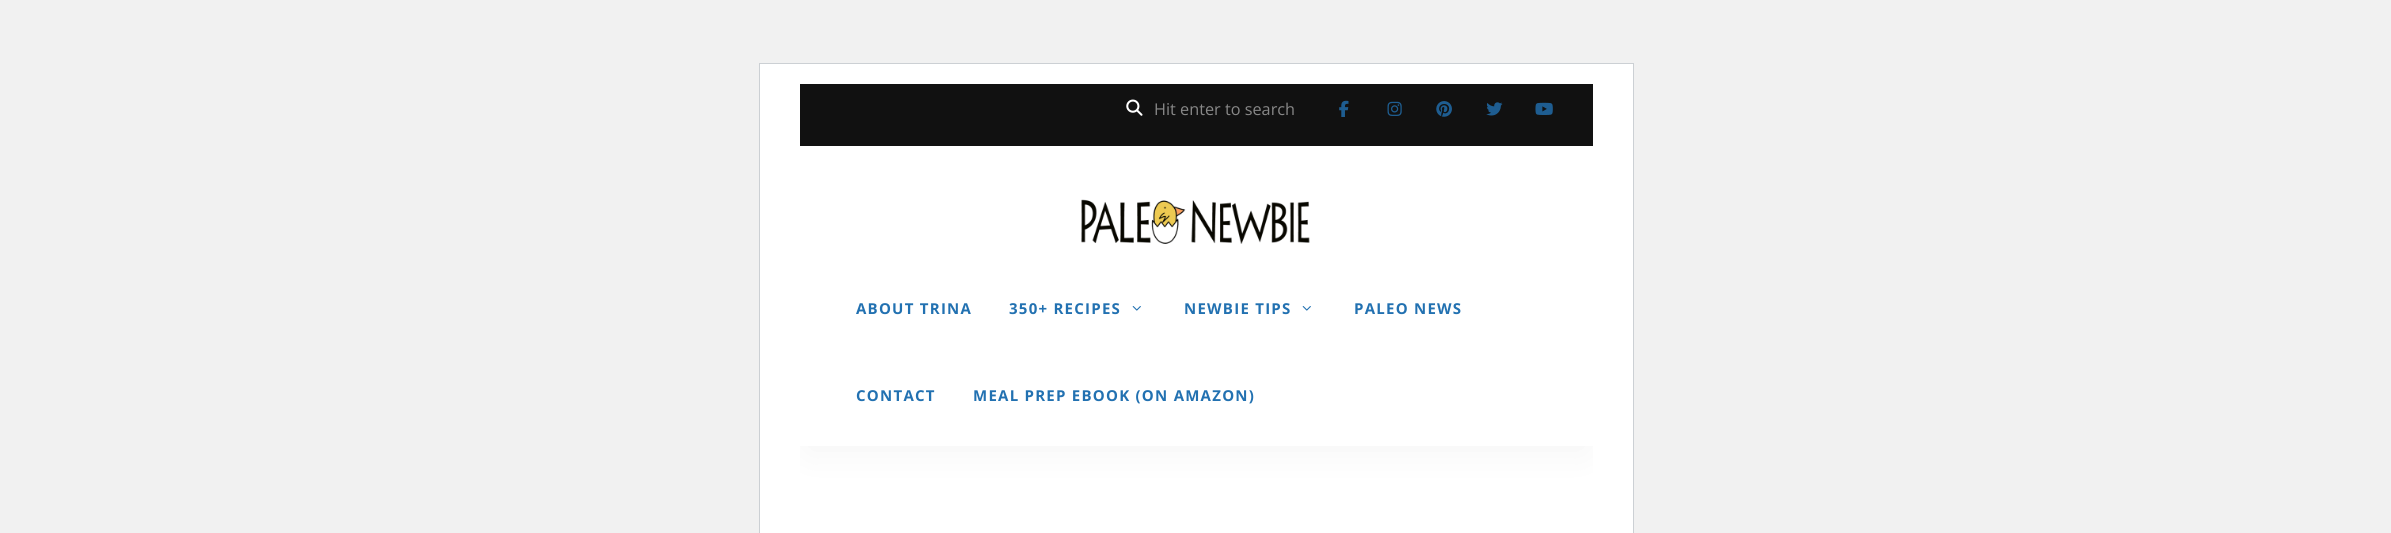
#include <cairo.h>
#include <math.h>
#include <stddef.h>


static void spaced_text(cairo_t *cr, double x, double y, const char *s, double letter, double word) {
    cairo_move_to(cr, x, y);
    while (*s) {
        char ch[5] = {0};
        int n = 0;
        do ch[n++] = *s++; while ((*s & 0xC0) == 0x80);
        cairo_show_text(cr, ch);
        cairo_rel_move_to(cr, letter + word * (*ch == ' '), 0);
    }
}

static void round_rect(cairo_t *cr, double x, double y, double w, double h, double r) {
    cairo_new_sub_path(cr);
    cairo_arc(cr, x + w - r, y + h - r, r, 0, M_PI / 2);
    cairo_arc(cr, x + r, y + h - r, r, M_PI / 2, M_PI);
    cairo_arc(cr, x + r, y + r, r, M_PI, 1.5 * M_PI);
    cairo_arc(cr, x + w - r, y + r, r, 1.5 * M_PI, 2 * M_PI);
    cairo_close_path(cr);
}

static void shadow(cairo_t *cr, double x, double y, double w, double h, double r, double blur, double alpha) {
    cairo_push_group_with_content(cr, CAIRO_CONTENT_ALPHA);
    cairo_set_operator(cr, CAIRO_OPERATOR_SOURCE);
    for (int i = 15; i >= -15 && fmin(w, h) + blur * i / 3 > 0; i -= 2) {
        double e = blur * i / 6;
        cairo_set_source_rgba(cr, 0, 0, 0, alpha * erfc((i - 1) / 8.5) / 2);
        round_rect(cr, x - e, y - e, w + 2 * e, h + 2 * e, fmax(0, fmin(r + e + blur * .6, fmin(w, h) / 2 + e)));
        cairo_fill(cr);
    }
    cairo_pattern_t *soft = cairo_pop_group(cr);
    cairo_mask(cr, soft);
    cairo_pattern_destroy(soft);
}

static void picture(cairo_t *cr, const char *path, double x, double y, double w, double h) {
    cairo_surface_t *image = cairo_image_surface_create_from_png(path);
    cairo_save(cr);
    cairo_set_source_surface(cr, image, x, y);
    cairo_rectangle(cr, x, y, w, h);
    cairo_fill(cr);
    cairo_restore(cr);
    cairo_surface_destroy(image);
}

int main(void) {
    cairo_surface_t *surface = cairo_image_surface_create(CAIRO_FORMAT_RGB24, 2391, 533);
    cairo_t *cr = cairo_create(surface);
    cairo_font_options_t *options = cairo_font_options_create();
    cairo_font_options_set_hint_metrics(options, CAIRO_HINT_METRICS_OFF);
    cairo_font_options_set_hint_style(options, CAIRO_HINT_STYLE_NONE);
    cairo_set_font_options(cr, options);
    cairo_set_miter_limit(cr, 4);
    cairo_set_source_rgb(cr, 0.945, 0.945, 0.945);
    cairo_paint(cr);
    cairo_set_source_rgb(cr, 1, 1, 1);
    cairo_rectangle(cr, 759.5, 63.5, 874, 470);
    cairo_fill_preserve(cr);
    cairo_set_source_rgb(cr, 0.8, 0.816, 0.831);
    cairo_set_line_width(cr, 1);
    cairo_stroke(cr);
    cairo_save(cr);
    cairo_rectangle(cr, 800, 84, 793, 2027);
    cairo_clip(cr);
    cairo_set_source_rgb(cr, 0, 0, 0);
    shadow(cr, 808, 101, 777, 348, 0, 19, 0.05);
    cairo_restore(cr);
    cairo_set_source_rgb(cr, 1, 1, 1);
    cairo_rectangle(cr, 800, 146, 793, 300);
    cairo_fill(cr);
    cairo_set_source_rgb(cr, 0.067, 0.067, 0.067);
    cairo_rectangle(cr, 800, 84, 793, 62);
    cairo_fill(cr);
    picture(cr, "img1.png", 1126, 99, 17, 17);
    cairo_select_font_face(cr, "Open Sans", CAIRO_FONT_SLANT_NORMAL, CAIRO_FONT_WEIGHT_NORMAL);
    cairo_set_font_size(cr, 16.25);
    cairo_set_source_rgb(cr, 0.533, 0.533, 0.533);
    cairo_move_to(cr, 1154, 115);
    cairo_show_text(cr, "Hit enter to search");
    picture(cr, "img2.png", 1339, 100, 10, 17);
    picture(cr, "img3.png", 1387, 101, 15, 15);
    picture(cr, "img4.png", 1436, 101, 16, 16);
    picture(cr, "img5.png", 1486, 102, 17, 14);
    picture(cr, "img6.png", 1535, 102, 18, 13);
    picture(cr, "img7.png", 1081, 199, 229, 45);
    cairo_select_font_face(cr, "Open Sans", CAIRO_FONT_SLANT_NORMAL, CAIRO_FONT_WEIGHT_BOLD);
    cairo_set_font_size(cr, 15);
    cairo_set_source_rgb(cr, 0.133, 0.443, 0.694);
    spaced_text(cr, 856, 314, "ABOUT TRINA", 1.25, 0);
    spaced_text(cr, 1009, 314, "350+ RECIPES", 1.25, 0);
    picture(cr, "img8.png", 1132, 306, 9, 5);
    spaced_text(cr, 1184, 314, "NEWBIE TIPS", 1.25, 0);
    picture(cr, "img8.png", 1302, 306, 9, 5);
    spaced_text(cr, 1354, 314, "PALEO NEWS", 1.25, 0);
    spaced_text(cr, 856, 401, "CONTACT", 1.25, 0);
    spaced_text(cr, 973, 401, "MEAL PREP EBOOK (ON AMAZON)", 1.25, 0);
    cairo_surface_write_to_png(surface, "page.png");
    cairo_font_options_destroy(options);
    cairo_destroy(cr);
    cairo_surface_destroy(surface);
    return 0;
}
